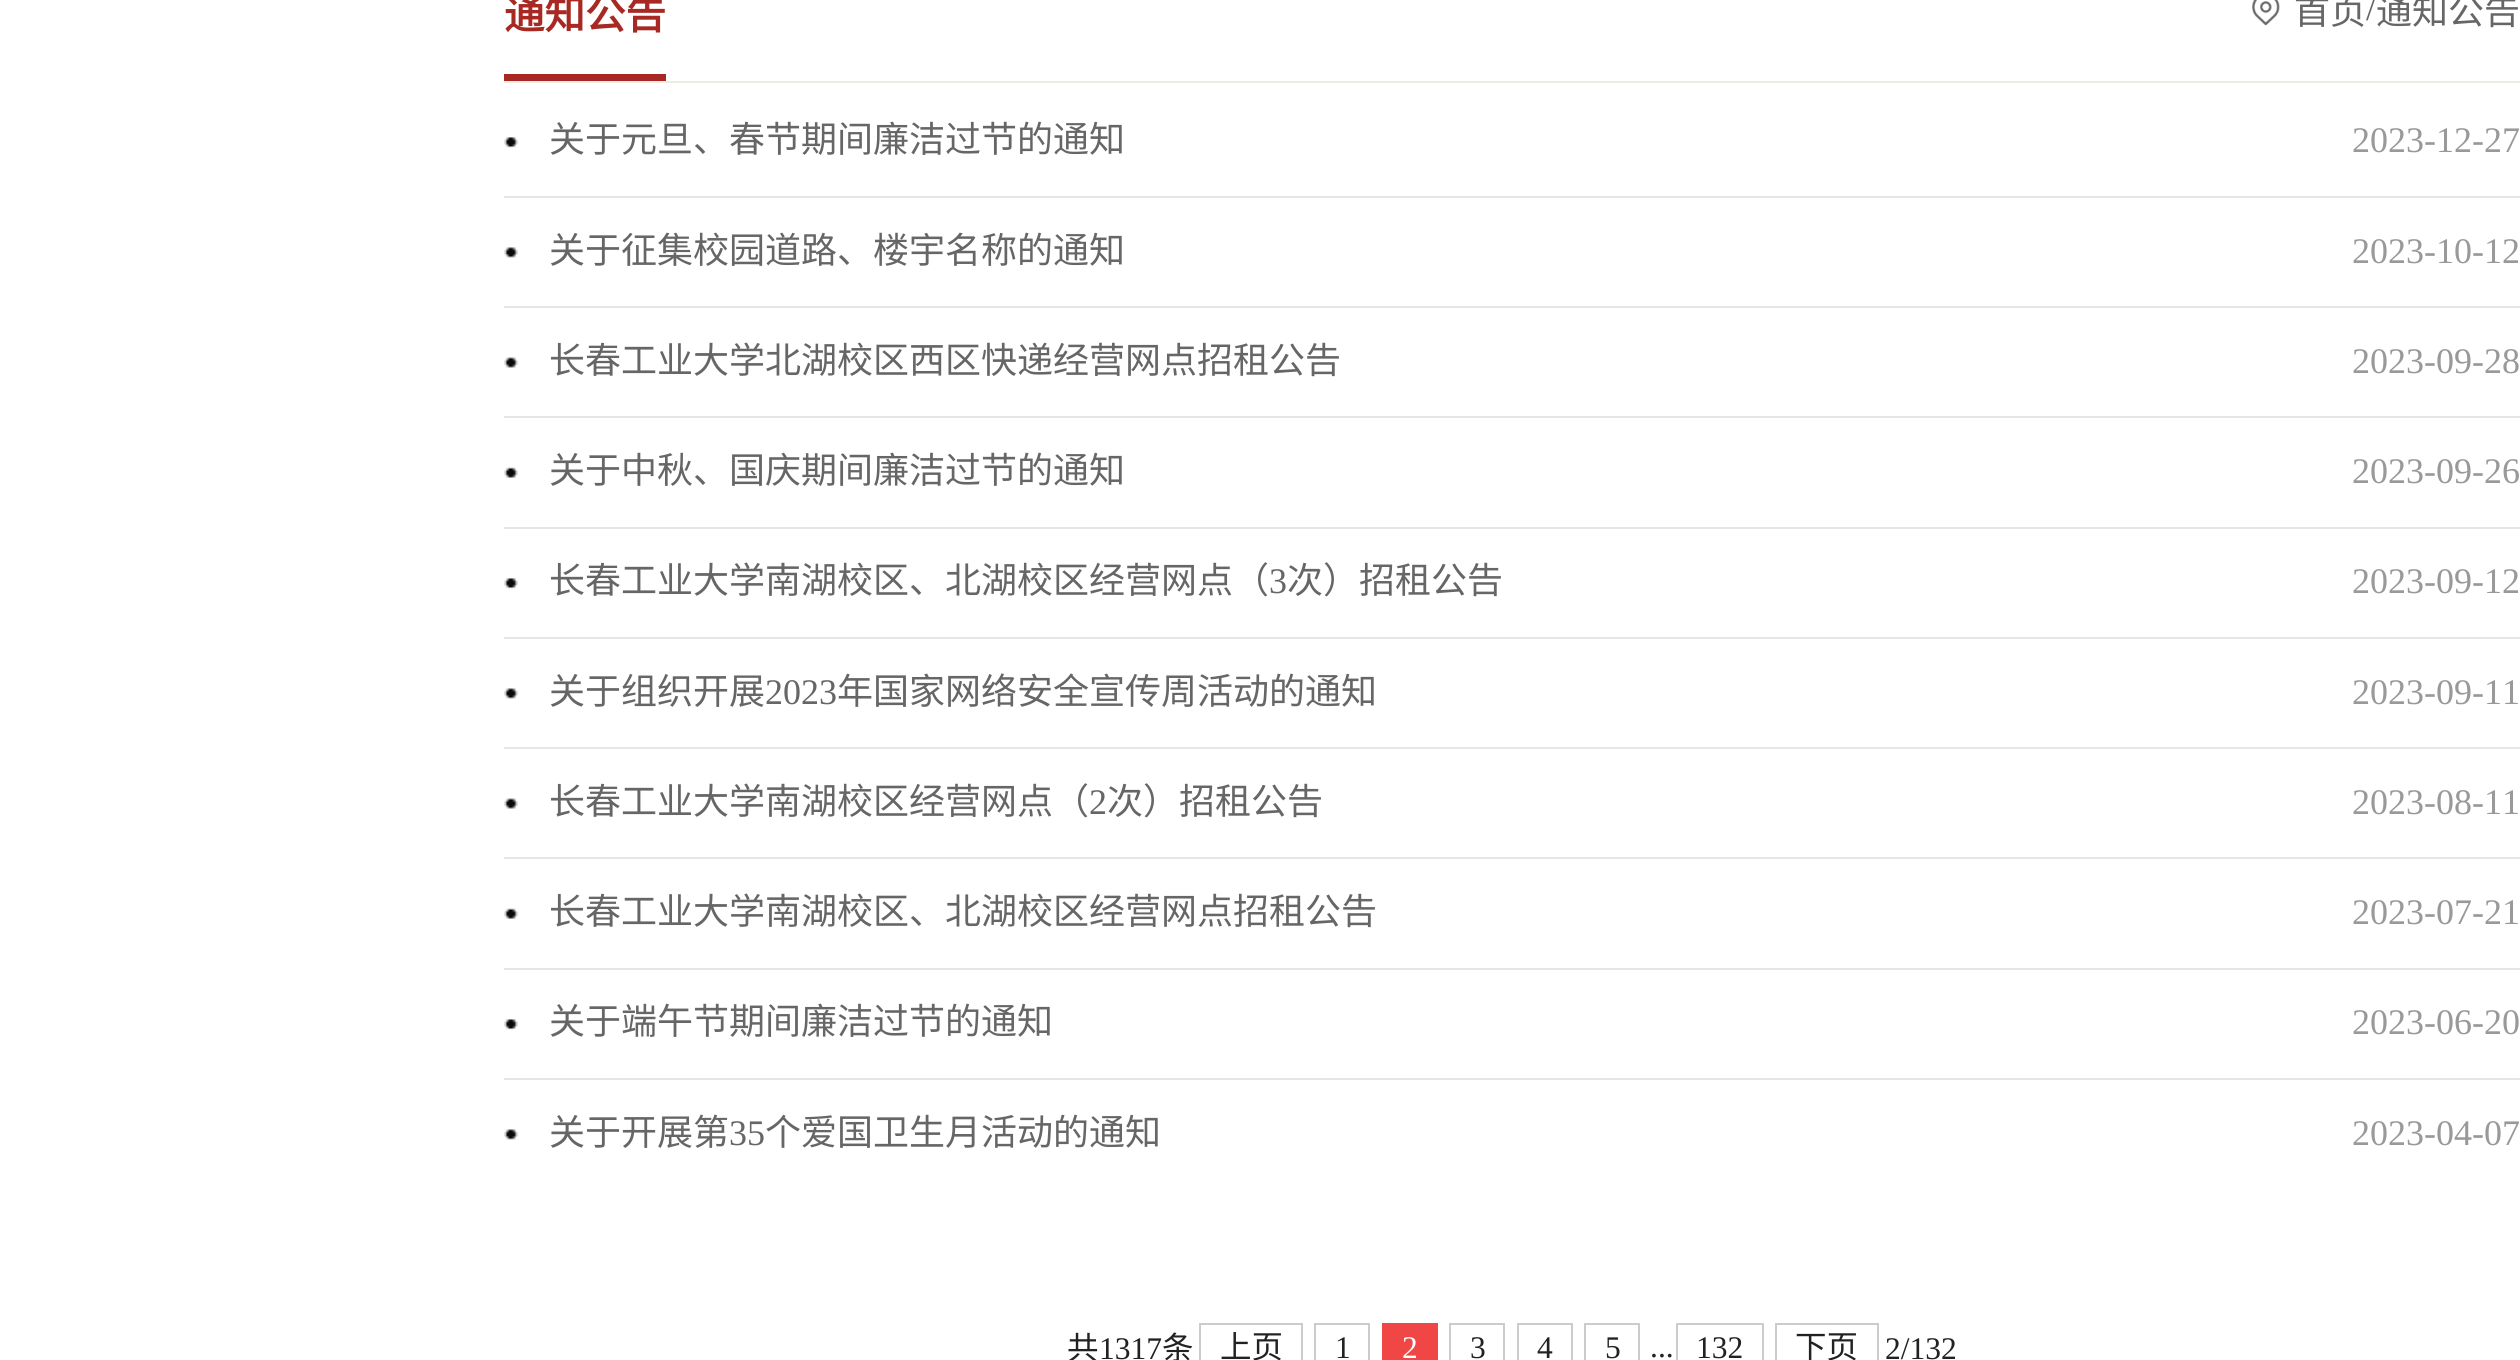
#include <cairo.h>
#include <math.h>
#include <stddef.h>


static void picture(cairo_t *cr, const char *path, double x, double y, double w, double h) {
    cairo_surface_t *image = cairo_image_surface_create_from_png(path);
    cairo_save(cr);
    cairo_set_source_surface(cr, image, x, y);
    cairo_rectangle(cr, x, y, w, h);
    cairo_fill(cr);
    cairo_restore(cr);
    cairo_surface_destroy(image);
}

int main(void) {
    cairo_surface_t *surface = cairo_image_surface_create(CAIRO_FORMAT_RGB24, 2520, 1360);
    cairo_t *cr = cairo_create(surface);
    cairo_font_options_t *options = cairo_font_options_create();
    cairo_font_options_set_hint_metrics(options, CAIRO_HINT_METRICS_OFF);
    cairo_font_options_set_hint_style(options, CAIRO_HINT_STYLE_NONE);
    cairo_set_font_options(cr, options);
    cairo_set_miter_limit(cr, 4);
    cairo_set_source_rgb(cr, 1, 1, 1);
    cairo_paint(cr);
    cairo_set_source_rgb(cr, 0.925, 0.918, 0.894);
    cairo_rectangle(cr, 504, 81, 2016, 2);
    cairo_fill(cr);
    cairo_set_source_rgb(cr, 0.659, 0.161, 0.137);
    cairo_rectangle(cr, 504, 74, 162, 7);
    cairo_fill(cr);
    cairo_select_font_face(cr, "Noto Sans CJK SC", CAIRO_FONT_SLANT_NORMAL, CAIRO_FONT_WEIGHT_BOLD);
    cairo_set_font_size(cr, 40.5);
    cairo_move_to(cr, 504, 29);
    cairo_show_text(cr, "通知公告");
    picture(cr, "img1.png", 2252, 0, 28, 26);
    cairo_select_font_face(cr, "Noto Sans CJK SC", CAIRO_FONT_SLANT_NORMAL, CAIRO_FONT_WEIGHT_NORMAL);
    cairo_set_font_size(cr, 36);
    cairo_set_source_rgb(cr, 0.4, 0.4, 0.4);
    cairo_move_to(cr, 2294, 24);
    cairo_show_text(cr, "首页");
    cairo_select_font_face(cr, "Liberation Serif", CAIRO_FONT_SLANT_NORMAL, CAIRO_FONT_WEIGHT_NORMAL);
    cairo_move_to(cr, 2366, 20);
    cairo_show_text(cr, "/");
    cairo_select_font_face(cr, "Noto Sans CJK SC", CAIRO_FONT_SLANT_NORMAL, CAIRO_FONT_WEIGHT_NORMAL);
    cairo_move_to(cr, 2376, 24);
    cairo_show_text(cr, "通知公告");
    picture(cr, "img2.png", 504, 137, 14, 11);
    cairo_move_to(cr, 549, 152);
    cairo_show_text(cr, "关于元旦、春节期间廉洁过节的通知");
    cairo_select_font_face(cr, "Liberation Serif", CAIRO_FONT_SLANT_NORMAL, CAIRO_FONT_WEIGHT_NORMAL);
    cairo_set_source_rgb(cr, 0.6, 0.6, 0.6);
    cairo_move_to(cr, 2352, 152);
    cairo_show_text(cr, "2023-12-27");
    picture(cr, "img3.png", 504, 247, 14, 11);
    cairo_set_source_rgb(cr, 0.898, 0.898, 0.898);
    cairo_rectangle(cr, 504, 196, 2016, 2);
    cairo_fill(cr);
    cairo_select_font_face(cr, "Noto Sans CJK SC", CAIRO_FONT_SLANT_NORMAL, CAIRO_FONT_WEIGHT_NORMAL);
    cairo_set_source_rgb(cr, 0.4, 0.4, 0.4);
    cairo_move_to(cr, 549, 263);
    cairo_show_text(cr, "关于征集校园道路、楼宇名称的通知");
    cairo_select_font_face(cr, "Liberation Serif", CAIRO_FONT_SLANT_NORMAL, CAIRO_FONT_WEIGHT_NORMAL);
    cairo_set_source_rgb(cr, 0.6, 0.6, 0.6);
    cairo_move_to(cr, 2352, 263);
    cairo_show_text(cr, "2023-10-12");
    picture(cr, "img4.png", 504, 357, 14, 11);
    cairo_set_source_rgb(cr, 0.898, 0.898, 0.898);
    cairo_rectangle(cr, 504, 306, 2016, 2);
    cairo_fill(cr);
    cairo_select_font_face(cr, "Noto Sans CJK SC", CAIRO_FONT_SLANT_NORMAL, CAIRO_FONT_WEIGHT_NORMAL);
    cairo_set_source_rgb(cr, 0.4, 0.4, 0.4);
    cairo_move_to(cr, 549, 373);
    cairo_show_text(cr, "长春工业大学北湖校区西区快递经营网点招租公告");
    cairo_select_font_face(cr, "Liberation Serif", CAIRO_FONT_SLANT_NORMAL, CAIRO_FONT_WEIGHT_NORMAL);
    cairo_set_source_rgb(cr, 0.6, 0.6, 0.6);
    cairo_move_to(cr, 2352, 373);
    cairo_show_text(cr, "2023-09-28");
    picture(cr, "img5.png", 504, 467, 14, 11);
    cairo_set_source_rgb(cr, 0.898, 0.898, 0.898);
    cairo_rectangle(cr, 504, 416, 2016, 2);
    cairo_fill(cr);
    cairo_select_font_face(cr, "Noto Sans CJK SC", CAIRO_FONT_SLANT_NORMAL, CAIRO_FONT_WEIGHT_NORMAL);
    cairo_set_source_rgb(cr, 0.4, 0.4, 0.4);
    cairo_move_to(cr, 549, 483);
    cairo_show_text(cr, "关于中秋、国庆期间廉洁过节的通知");
    cairo_select_font_face(cr, "Liberation Serif", CAIRO_FONT_SLANT_NORMAL, CAIRO_FONT_WEIGHT_NORMAL);
    cairo_set_source_rgb(cr, 0.6, 0.6, 0.6);
    cairo_move_to(cr, 2352, 483);
    cairo_show_text(cr, "2023-09-26");
    picture(cr, "img2.png", 504, 578, 14, 11);
    cairo_set_source_rgb(cr, 0.898, 0.898, 0.898);
    cairo_rectangle(cr, 504, 527, 2016, 2);
    cairo_fill(cr);
    cairo_select_font_face(cr, "Noto Sans CJK SC", CAIRO_FONT_SLANT_NORMAL, CAIRO_FONT_WEIGHT_NORMAL);
    cairo_set_source_rgb(cr, 0.4, 0.4, 0.4);
    cairo_move_to(cr, 549, 593);
    cairo_show_text(cr, "长春工业大学南湖校区、北湖校区经营网点（");
    cairo_select_font_face(cr, "Liberation Serif", CAIRO_FONT_SLANT_NORMAL, CAIRO_FONT_WEIGHT_NORMAL);
    cairo_move_to(cr, 1269, 593);
    cairo_show_text(cr, "3");
    cairo_select_font_face(cr, "Noto Sans CJK SC", CAIRO_FONT_SLANT_NORMAL, CAIRO_FONT_WEIGHT_NORMAL);
    cairo_move_to(cr, 1287, 593);
    cairo_show_text(cr, "次）招租公告");
    cairo_select_font_face(cr, "Liberation Serif", CAIRO_FONT_SLANT_NORMAL, CAIRO_FONT_WEIGHT_NORMAL);
    cairo_set_source_rgb(cr, 0.6, 0.6, 0.6);
    cairo_move_to(cr, 2352, 593);
    cairo_show_text(cr, "2023-09-12");
    picture(cr, "img3.png", 504, 688, 14, 11);
    cairo_set_source_rgb(cr, 0.898, 0.898, 0.898);
    cairo_rectangle(cr, 504, 637, 2016, 2);
    cairo_fill(cr);
    cairo_select_font_face(cr, "Noto Sans CJK SC", CAIRO_FONT_SLANT_NORMAL, CAIRO_FONT_WEIGHT_NORMAL);
    cairo_set_source_rgb(cr, 0.4, 0.4, 0.4);
    cairo_move_to(cr, 549, 704);
    cairo_show_text(cr, "关于组织开展");
    cairo_select_font_face(cr, "Liberation Serif", CAIRO_FONT_SLANT_NORMAL, CAIRO_FONT_WEIGHT_NORMAL);
    cairo_move_to(cr, 765, 704);
    cairo_show_text(cr, "2023");
    cairo_select_font_face(cr, "Noto Sans CJK SC", CAIRO_FONT_SLANT_NORMAL, CAIRO_FONT_WEIGHT_NORMAL);
    cairo_move_to(cr, 837, 704);
    cairo_show_text(cr, "年国家网络安全宣传周活动的通知");
    cairo_select_font_face(cr, "Liberation Serif", CAIRO_FONT_SLANT_NORMAL, CAIRO_FONT_WEIGHT_NORMAL);
    cairo_set_source_rgb(cr, 0.6, 0.6, 0.6);
    cairo_move_to(cr, 2352, 704);
    cairo_show_text(cr, "2023-09-11");
    picture(cr, "img4.png", 504, 798, 14, 11);
    cairo_set_source_rgb(cr, 0.898, 0.898, 0.898);
    cairo_rectangle(cr, 504, 747, 2016, 2);
    cairo_fill(cr);
    cairo_select_font_face(cr, "Noto Sans CJK SC", CAIRO_FONT_SLANT_NORMAL, CAIRO_FONT_WEIGHT_NORMAL);
    cairo_set_source_rgb(cr, 0.4, 0.4, 0.4);
    cairo_move_to(cr, 549, 814);
    cairo_show_text(cr, "长春工业大学南湖校区经营网点（");
    cairo_select_font_face(cr, "Liberation Serif", CAIRO_FONT_SLANT_NORMAL, CAIRO_FONT_WEIGHT_NORMAL);
    cairo_move_to(cr, 1089, 814);
    cairo_show_text(cr, "2");
    cairo_select_font_face(cr, "Noto Sans CJK SC", CAIRO_FONT_SLANT_NORMAL, CAIRO_FONT_WEIGHT_NORMAL);
    cairo_move_to(cr, 1107, 814);
    cairo_show_text(cr, "次）招租公告");
    cairo_select_font_face(cr, "Liberation Serif", CAIRO_FONT_SLANT_NORMAL, CAIRO_FONT_WEIGHT_NORMAL);
    cairo_set_source_rgb(cr, 0.6, 0.6, 0.6);
    cairo_move_to(cr, 2352, 814);
    cairo_show_text(cr, "2023-08-11");
    picture(cr, "img5.png", 504, 908, 14, 11);
    cairo_set_source_rgb(cr, 0.898, 0.898, 0.898);
    cairo_rectangle(cr, 504, 857, 2016, 2);
    cairo_fill(cr);
    cairo_select_font_face(cr, "Noto Sans CJK SC", CAIRO_FONT_SLANT_NORMAL, CAIRO_FONT_WEIGHT_NORMAL);
    cairo_set_source_rgb(cr, 0.4, 0.4, 0.4);
    cairo_move_to(cr, 549, 924);
    cairo_show_text(cr, "长春工业大学南湖校区、北湖校区经营网点招租公告");
    cairo_select_font_face(cr, "Liberation Serif", CAIRO_FONT_SLANT_NORMAL, CAIRO_FONT_WEIGHT_NORMAL);
    cairo_set_source_rgb(cr, 0.6, 0.6, 0.6);
    cairo_move_to(cr, 2352, 924);
    cairo_show_text(cr, "2023-07-21");
    picture(cr, "img2.png", 504, 1019, 14, 11);
    cairo_set_source_rgb(cr, 0.898, 0.898, 0.898);
    cairo_rectangle(cr, 504, 968, 2016, 2);
    cairo_fill(cr);
    cairo_select_font_face(cr, "Noto Sans CJK SC", CAIRO_FONT_SLANT_NORMAL, CAIRO_FONT_WEIGHT_NORMAL);
    cairo_set_source_rgb(cr, 0.4, 0.4, 0.4);
    cairo_move_to(cr, 549, 1034);
    cairo_show_text(cr, "关于端午节期间廉洁过节的通知");
    cairo_select_font_face(cr, "Liberation Serif", CAIRO_FONT_SLANT_NORMAL, CAIRO_FONT_WEIGHT_NORMAL);
    cairo_set_source_rgb(cr, 0.6, 0.6, 0.6);
    cairo_move_to(cr, 2352, 1034);
    cairo_show_text(cr, "2023-06-20");
    picture(cr, "img3.png", 504, 1129, 14, 11);
    cairo_set_source_rgb(cr, 0.898, 0.898, 0.898);
    cairo_rectangle(cr, 504, 1078, 2016, 2);
    cairo_fill(cr);
    cairo_select_font_face(cr, "Noto Sans CJK SC", CAIRO_FONT_SLANT_NORMAL, CAIRO_FONT_WEIGHT_NORMAL);
    cairo_set_source_rgb(cr, 0.4, 0.4, 0.4);
    cairo_move_to(cr, 549, 1145);
    cairo_show_text(cr, "关于开展第");
    cairo_select_font_face(cr, "Liberation Serif", CAIRO_FONT_SLANT_NORMAL, CAIRO_FONT_WEIGHT_NORMAL);
    cairo_move_to(cr, 729, 1145);
    cairo_show_text(cr, "35");
    cairo_select_font_face(cr, "Noto Sans CJK SC", CAIRO_FONT_SLANT_NORMAL, CAIRO_FONT_WEIGHT_NORMAL);
    cairo_move_to(cr, 765, 1145);
    cairo_show_text(cr, "个爱国卫生月活动的通知");
    cairo_select_font_face(cr, "Liberation Serif", CAIRO_FONT_SLANT_NORMAL, CAIRO_FONT_WEIGHT_NORMAL);
    cairo_set_source_rgb(cr, 0.6, 0.6, 0.6);
    cairo_move_to(cr, 2352, 1145);
    cairo_show_text(cr, "2023-04-07");
    cairo_select_font_face(cr, "Noto Sans CJK SC", CAIRO_FONT_SLANT_NORMAL, CAIRO_FONT_WEIGHT_NORMAL);
    cairo_set_font_size(cr, 31.5);
    cairo_set_source_rgb(cr, 0.133, 0.133, 0.133);
    cairo_move_to(cr, 1067, 1359);
    cairo_show_text(cr, "共");
    cairo_select_font_face(cr, "Liberation Serif", CAIRO_FONT_SLANT_NORMAL, CAIRO_FONT_WEIGHT_NORMAL);
    cairo_move_to(cr, 1099, 1359);
    cairo_show_text(cr, "1317");
    cairo_select_font_face(cr, "Noto Sans CJK SC", CAIRO_FONT_SLANT_NORMAL, CAIRO_FONT_WEIGHT_NORMAL);
    cairo_move_to(cr, 1162, 1359);
    cairo_show_text(cr, "条");
    cairo_rectangle(cr, 1200, 1324, 102, 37);
    cairo_set_source_rgb(cr, 0.8, 0.8, 0.8);
    cairo_stroke(cr);
    cairo_set_source_rgb(cr, 0.133, 0.133, 0.133);
    cairo_move_to(cr, 1220, 1358);
    cairo_show_text(cr, "上页");
    cairo_rectangle(cr, 1315, 1324, 54, 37);
    cairo_set_source_rgb(cr, 0.8, 0.8, 0.8);
    cairo_stroke(cr);
    cairo_select_font_face(cr, "Liberation Serif", CAIRO_FONT_SLANT_NORMAL, CAIRO_FONT_WEIGHT_NORMAL);
    cairo_set_source_rgb(cr, 0.133, 0.133, 0.133);
    cairo_move_to(cr, 1335, 1358);
    cairo_show_text(cr, "1");
    cairo_set_source_rgb(cr, 0.941, 0.275, 0.275);
    cairo_rectangle(cr, 1382, 1323, 56, 37);
    cairo_fill(cr);
    cairo_set_source_rgb(cr, 1, 1, 1);
    cairo_move_to(cr, 1402, 1358);
    cairo_show_text(cr, "2");
    cairo_rectangle(cr, 1450, 1324, 54, 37);
    cairo_set_source_rgb(cr, 0.8, 0.8, 0.8);
    cairo_stroke(cr);
    cairo_set_source_rgb(cr, 0.133, 0.133, 0.133);
    cairo_move_to(cr, 1470, 1358);
    cairo_show_text(cr, "3");
    cairo_rectangle(cr, 1518, 1324, 54, 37);
    cairo_set_source_rgb(cr, 0.8, 0.8, 0.8);
    cairo_stroke(cr);
    cairo_set_source_rgb(cr, 0.133, 0.133, 0.133);
    cairo_move_to(cr, 1537, 1358);
    cairo_show_text(cr, "4");
    cairo_rectangle(cr, 1585, 1324, 54, 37);
    cairo_set_source_rgb(cr, 0.8, 0.8, 0.8);
    cairo_stroke(cr);
    cairo_set_source_rgb(cr, 0.133, 0.133, 0.133);
    cairo_move_to(cr, 1605, 1358);
    cairo_show_text(cr, "5");
    cairo_move_to(cr, 1650, 1357);
    cairo_show_text(cr, "...");
    cairo_rectangle(cr, 1677, 1324, 86, 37);
    cairo_set_source_rgb(cr, 0.8, 0.8, 0.8);
    cairo_stroke(cr);
    cairo_set_source_rgb(cr, 0.133, 0.133, 0.133);
    cairo_move_to(cr, 1696, 1358);
    cairo_show_text(cr, "132");
    cairo_rectangle(cr, 1776, 1324, 102, 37);
    cairo_set_source_rgb(cr, 0.8, 0.8, 0.8);
    cairo_stroke(cr);
    cairo_select_font_face(cr, "Noto Sans CJK SC", CAIRO_FONT_SLANT_NORMAL, CAIRO_FONT_WEIGHT_NORMAL);
    cairo_set_source_rgb(cr, 0.133, 0.133, 0.133);
    cairo_move_to(cr, 1795, 1358);
    cairo_show_text(cr, "下页");
    cairo_select_font_face(cr, "Liberation Serif", CAIRO_FONT_SLANT_NORMAL, CAIRO_FONT_WEIGHT_NORMAL);
    cairo_move_to(cr, 1885, 1359);
    cairo_show_text(cr, "2/132");
    cairo_surface_write_to_png(surface, "page.png");
    cairo_font_options_destroy(options);
    cairo_destroy(cr);
    cairo_surface_destroy(surface);
    return 0;
}
